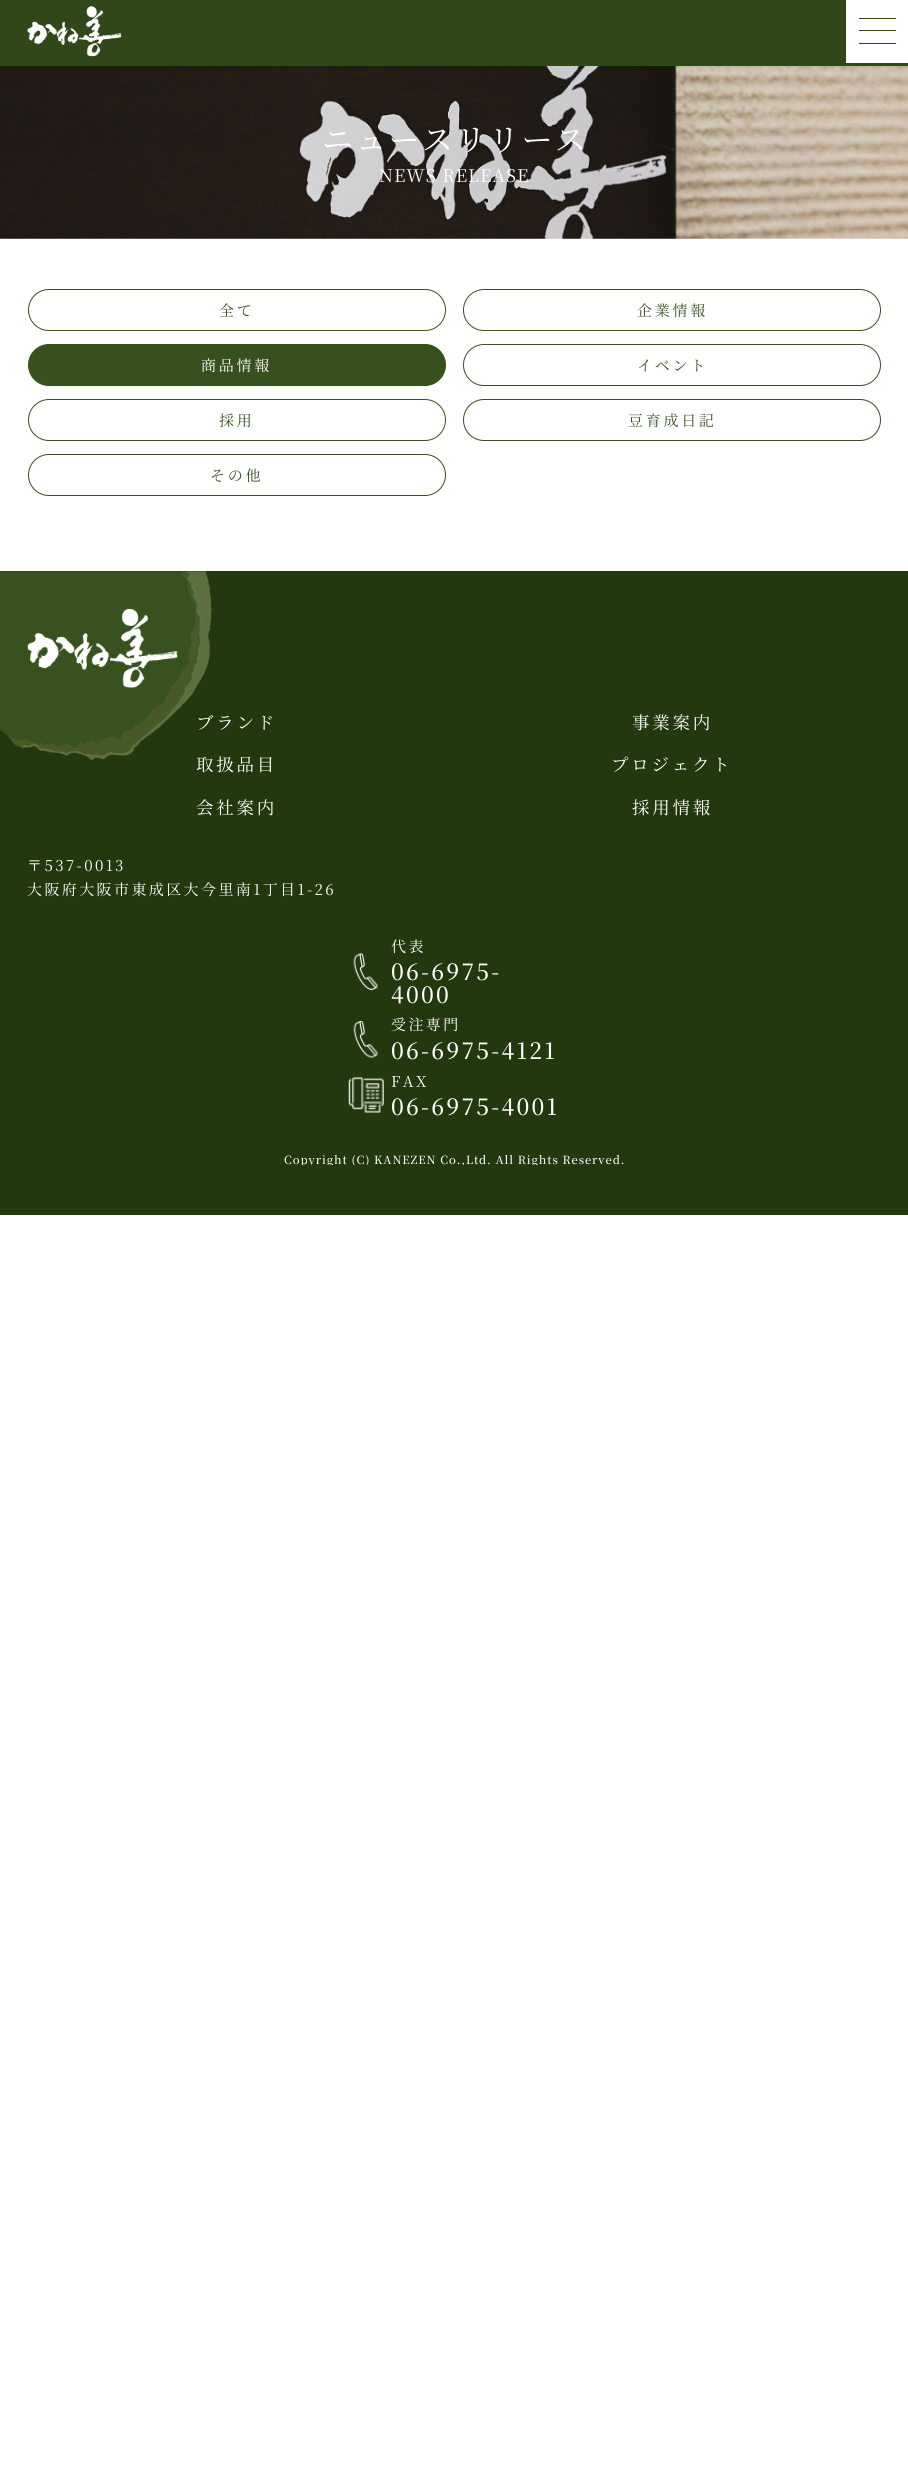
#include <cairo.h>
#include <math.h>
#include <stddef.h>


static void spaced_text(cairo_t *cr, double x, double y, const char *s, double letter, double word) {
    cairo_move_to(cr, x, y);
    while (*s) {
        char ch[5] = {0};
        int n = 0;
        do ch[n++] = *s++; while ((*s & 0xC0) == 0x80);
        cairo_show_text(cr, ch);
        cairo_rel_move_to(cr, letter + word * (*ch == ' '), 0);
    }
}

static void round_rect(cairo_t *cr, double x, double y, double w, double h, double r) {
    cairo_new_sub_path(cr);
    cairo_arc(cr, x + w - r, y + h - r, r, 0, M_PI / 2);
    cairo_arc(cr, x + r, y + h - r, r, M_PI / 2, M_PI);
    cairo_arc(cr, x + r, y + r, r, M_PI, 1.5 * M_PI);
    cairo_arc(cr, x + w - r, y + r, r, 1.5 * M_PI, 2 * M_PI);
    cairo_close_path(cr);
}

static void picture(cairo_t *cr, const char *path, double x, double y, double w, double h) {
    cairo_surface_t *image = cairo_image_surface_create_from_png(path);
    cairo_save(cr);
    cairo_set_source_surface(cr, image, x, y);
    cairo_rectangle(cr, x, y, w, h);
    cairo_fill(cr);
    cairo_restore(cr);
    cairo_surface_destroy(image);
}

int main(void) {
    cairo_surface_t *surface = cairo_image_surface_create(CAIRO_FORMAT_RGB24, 908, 2481);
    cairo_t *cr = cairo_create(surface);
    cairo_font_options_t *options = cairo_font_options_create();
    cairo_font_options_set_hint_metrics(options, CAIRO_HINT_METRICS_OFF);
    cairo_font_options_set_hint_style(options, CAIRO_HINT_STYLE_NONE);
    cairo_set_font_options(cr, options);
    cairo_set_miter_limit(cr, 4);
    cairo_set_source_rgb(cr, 1, 1, 1);
    cairo_paint(cr);
    cairo_set_source_rgb(cr, 0.184, 0.278, 0.098);
    cairo_rectangle(cr, 0, 0, 846, 63);
    cairo_fill(cr);
    picture(cr, "img1.png", 27, 6, 95, 51);
    cairo_rectangle(cr, 859, 30, 37, 1);
    cairo_fill(cr);
    cairo_rectangle(cr, 859, 18, 37, 1);
    cairo_fill(cr);
    cairo_rectangle(cr, 859, 43, 37, 1);
    cairo_fill(cr);
    picture(cr, "img2.png", 0, 66, 908, 173);
    cairo_rectangle(cr, 0, 63, 908, 3);
    cairo_fill(cr);
    cairo_select_font_face(cr, "Noto Serif JP", CAIRO_FONT_SLANT_NORMAL, CAIRO_FONT_WEIGHT_NORMAL);
    cairo_set_font_size(cr, 31.25);
    cairo_set_source_rgb(cr, 1, 1, 1);
    spaced_text(cr, 322, 151, "ニュースリリース", 2, 0);
    cairo_set_font_size(cr, 17.5);
    spaced_text(cr, 379, 182, "NEWS RELEASE", 1, 0);
    round_rect(cr, 28.5, 289.5, 417, 41, 20.5);
    cairo_set_source_rgb(cr, 0.216, 0.318, 0.118);
    cairo_set_line_width(cr, 1);
    cairo_stroke(cr);
    cairo_set_font_size(cr, 15);
    spaced_text(cr, 219, 316, "全て", 2.75, 0);
    round_rect(cr, 463.5, 289.5, 417, 41, 20.5);
    cairo_stroke(cr);
    spaced_text(cr, 637, 316, "企業情報", 2.75, 0);
    round_rect(cr, 28.5, 344.5, 417, 41, 20.5);
    cairo_fill_preserve(cr);
    cairo_stroke(cr);
    cairo_set_source_rgb(cr, 1, 1, 1);
    spaced_text(cr, 201, 371, "商品情報", 2.75, 0);
    round_rect(cr, 463.5, 344.5, 417, 41, 20.5);
    cairo_set_source_rgb(cr, 0.216, 0.318, 0.118);
    cairo_stroke(cr);
    spaced_text(cr, 637, 371, "イベント", 2.75, 0);
    round_rect(cr, 28.5, 399.5, 417, 41, 20.5);
    cairo_stroke(cr);
    spaced_text(cr, 219, 426, "採用", 2.75, 0);
    round_rect(cr, 463.5, 399.5, 417, 41, 20.5);
    cairo_stroke(cr);
    spaced_text(cr, 628, 426, "豆育成日記", 2.75, 0);
    round_rect(cr, 28.5, 454.5, 417, 41, 20.5);
    cairo_stroke(cr);
    spaced_text(cr, 210, 481, "その他", 2.75, 0);
    cairo_set_source_rgb(cr, 0.133, 0.22, 0.059);
    cairo_rectangle(cr, 0, 571, 908, 644);
    cairo_fill(cr);
    picture(cr, "img3.png", 0, 571, 212, 189);
    picture(cr, "img4.png", 27, 608, 151, 80);
    cairo_set_font_size(cr, 17.5);
    cairo_set_source_rgb(cr, 1, 1, 1);
    spaced_text(cr, 196, 729, "ブランド", 2.75, 0);
    spaced_text(cr, 632, 729, "事業案内", 2.75, 0);
    spaced_text(cr, 196, 771, "取扱品目", 2.75, 0);
    spaced_text(cr, 611, 771, "プロジェクト", 2.75, 0);
    spaced_text(cr, 196, 814, "会社案内", 2.75, 0);
    spaced_text(cr, 632, 814, "採用情報", 2.75, 0);
    cairo_set_font_size(cr, 15);
    spaced_text(cr, 27, 871, "〒537-0013", 2.4, 0);
    spaced_text(cr, 27, 895, "大阪府大阪市東成区大今里南1丁目1-26", 2.4, 0);
    spaced_text(cr, 391, 952, "代表", 2.4, 0);
    picture(cr, "img5.png", 353, 952, 25, 38);
    cairo_select_font_face(cr, "Noto Serif JP Medium", CAIRO_FONT_SLANT_NORMAL, CAIRO_FONT_WEIGHT_NORMAL);
    cairo_set_font_size(cr, 22.5);
    spaced_text(cr, 391, 980, "06-6975-", 2.25, 0);
    spaced_text(cr, 391, 1003, "4000", 2.25, 0);
    picture(cr, "img6.png", 353, 1020, 25, 38);
    cairo_select_font_face(cr, "Noto Serif JP", CAIRO_FONT_SLANT_NORMAL, CAIRO_FONT_WEIGHT_NORMAL);
    cairo_set_font_size(cr, 15);
    spaced_text(cr, 391, 1030, "受注専門", 2.4, 0);
    cairo_select_font_face(cr, "Noto Serif JP Medium", CAIRO_FONT_SLANT_NORMAL, CAIRO_FONT_WEIGHT_NORMAL);
    cairo_set_font_size(cr, 22.5);
    spaced_text(cr, 391, 1059, "06-6975-4121", 2.25, 0);
    picture(cr, "img7.png", 348, 1077, 36, 36);
    cairo_select_font_face(cr, "Noto Serif JP", CAIRO_FONT_SLANT_NORMAL, CAIRO_FONT_WEIGHT_NORMAL);
    cairo_set_font_size(cr, 15);
    spaced_text(cr, 391, 1087, "FAX", 2.4, 0);
    cairo_select_font_face(cr, "Noto Serif JP Medium", CAIRO_FONT_SLANT_NORMAL, CAIRO_FONT_WEIGHT_NORMAL);
    cairo_set_font_size(cr, 22.5);
    spaced_text(cr, 391, 1115, "06-6975-4001", 2.25, 0);
    cairo_save(cr);
    cairo_rectangle(cr, 28, 609, 853, 556);
    cairo_clip(cr);
    cairo_set_font_size(cr, 11.25);
    spaced_text(cr, 284, 1164, "Copyright (C) KANEZEN Co.,Ltd. All Rights Reserved.", 0.9, 0);
    cairo_restore(cr);
    cairo_surface_write_to_png(surface, "page.png");
    cairo_font_options_destroy(options);
    cairo_destroy(cr);
    cairo_surface_destroy(surface);
    return 0;
}
